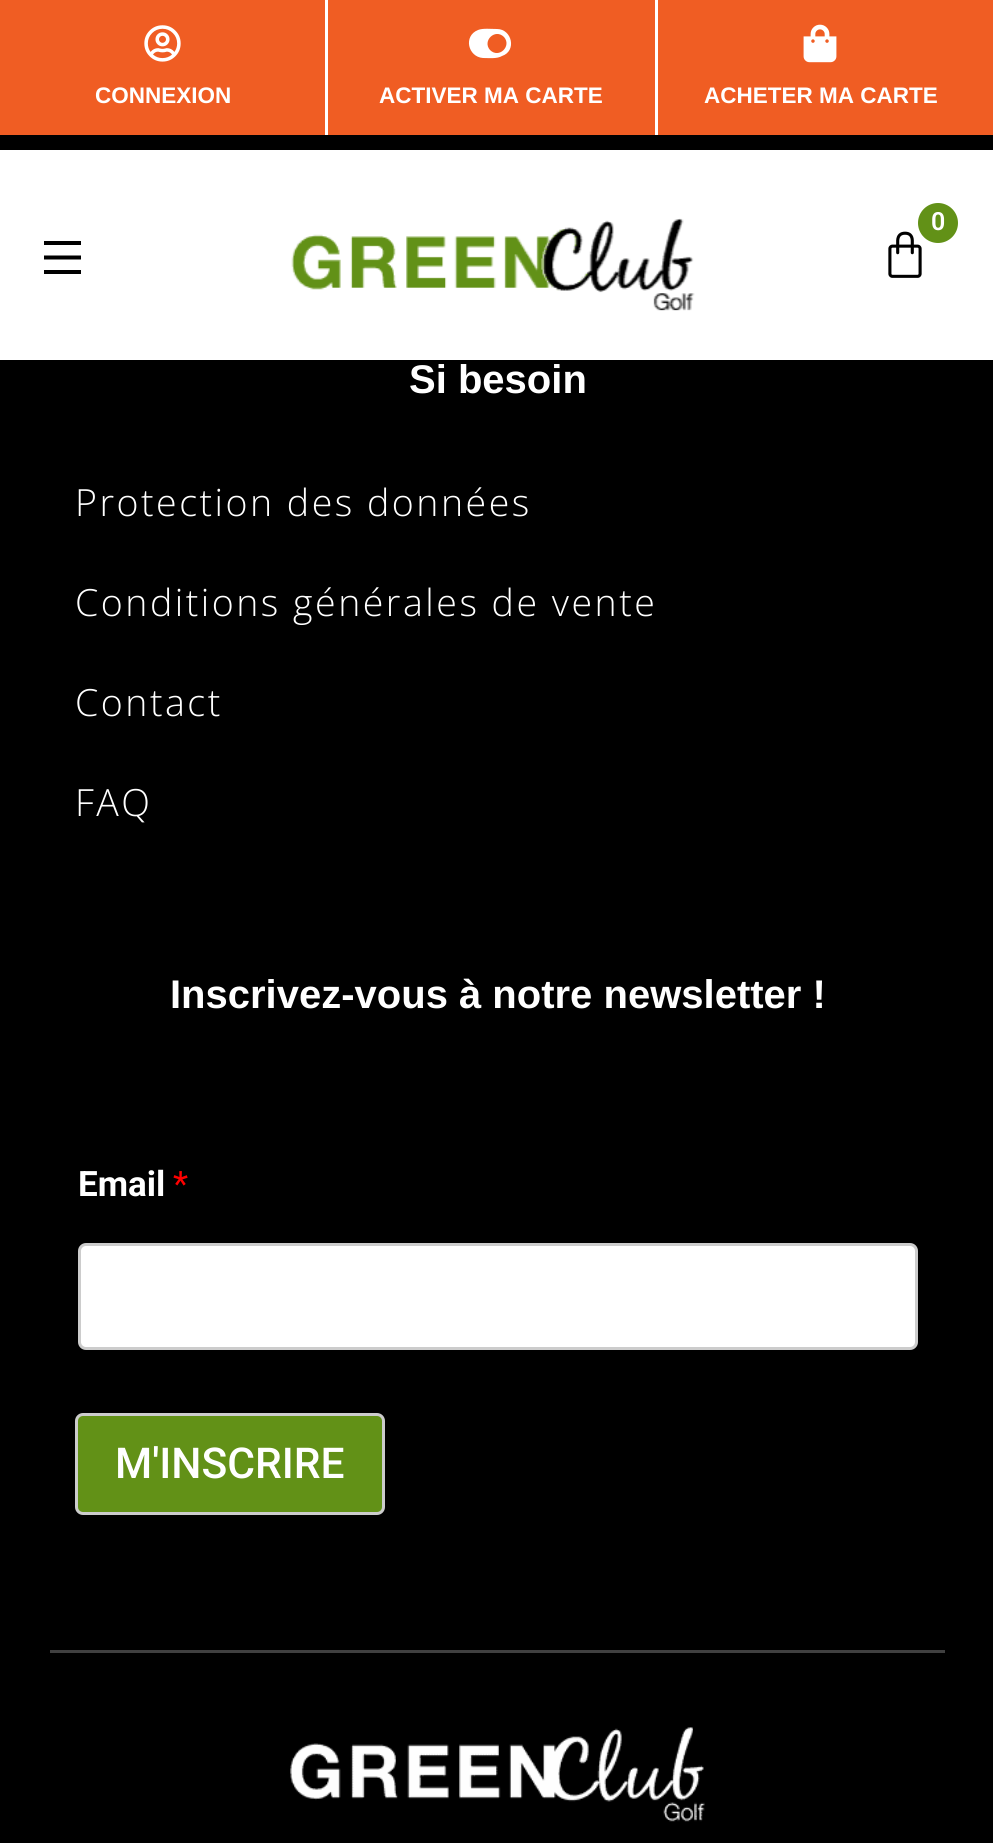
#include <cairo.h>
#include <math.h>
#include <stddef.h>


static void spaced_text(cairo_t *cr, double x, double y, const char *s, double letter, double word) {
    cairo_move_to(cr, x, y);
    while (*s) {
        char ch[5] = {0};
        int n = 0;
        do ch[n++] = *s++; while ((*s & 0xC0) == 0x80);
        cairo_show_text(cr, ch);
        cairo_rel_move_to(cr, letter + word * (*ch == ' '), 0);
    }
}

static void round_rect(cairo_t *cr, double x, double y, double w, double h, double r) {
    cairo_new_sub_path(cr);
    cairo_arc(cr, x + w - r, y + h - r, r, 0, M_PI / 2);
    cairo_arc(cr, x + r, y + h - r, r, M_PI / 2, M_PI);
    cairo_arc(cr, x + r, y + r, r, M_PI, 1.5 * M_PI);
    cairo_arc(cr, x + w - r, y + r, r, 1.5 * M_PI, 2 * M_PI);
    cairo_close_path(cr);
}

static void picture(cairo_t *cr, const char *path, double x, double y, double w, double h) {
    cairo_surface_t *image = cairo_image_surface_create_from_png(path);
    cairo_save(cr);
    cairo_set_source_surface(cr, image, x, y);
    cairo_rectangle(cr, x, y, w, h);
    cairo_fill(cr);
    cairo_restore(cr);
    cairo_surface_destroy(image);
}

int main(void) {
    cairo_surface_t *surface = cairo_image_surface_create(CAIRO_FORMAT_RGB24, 993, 1843);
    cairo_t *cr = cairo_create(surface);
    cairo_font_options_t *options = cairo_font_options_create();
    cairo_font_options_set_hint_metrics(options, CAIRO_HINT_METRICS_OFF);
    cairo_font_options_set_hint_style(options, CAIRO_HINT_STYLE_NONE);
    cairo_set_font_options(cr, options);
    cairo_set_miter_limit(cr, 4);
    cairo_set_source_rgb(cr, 0, 0, 0);
    cairo_paint(cr);
    cairo_set_source_rgb(cr, 0.941, 0.365, 0.137);
    cairo_rectangle(cr, 0, 0, 993, 135);
    cairo_fill(cr);
    cairo_set_source_rgb(cr, 1, 1, 1);
    cairo_rectangle(cr, 325, 0, 3, 135);
    cairo_fill(cr);
    picture(cr, "img1.png", 144, 25, 37, 37);
    cairo_select_font_face(cr, "Liberation Sans", CAIRO_FONT_SLANT_NORMAL, CAIRO_FONT_WEIGHT_BOLD);
    cairo_set_font_size(cr, 22.5);
    cairo_move_to(cr, 95, 103);
    cairo_show_text(cr, "CONNEXION");
    cairo_rectangle(cr, 655, 0, 3, 135);
    cairo_fill(cr);
    cairo_new_path(cr);
    cairo_move_to(cr, 497, 29);
    cairo_curve_to(cr, 512, 29, 517, 51, 502, 56);
    cairo_curve_to(cr, 497, 59, 489, 58, 483, 58);
    cairo_curve_to(cr, 468, 57, 463, 36, 478, 30);
    cairo_curve_to(cr, 483, 28, 491, 29, 497, 29);
    cairo_close_path(cr);
    cairo_move_to(cr, 490, 50);
    cairo_curve_to(cr, 499, 59, 512, 46, 504, 37);
    cairo_curve_to(cr, 495, 28, 482, 41, 490, 50);
    cairo_close_path(cr);
    cairo_fill(cr);
    cairo_move_to(cr, 379, 103);
    cairo_show_text(cr, "ACTIVER MA CARTE");
    picture(cr, "img2.png", 803, 24, 34, 39);
    cairo_move_to(cr, 704, 103);
    cairo_show_text(cr, "ACHETER MA CARTE");
    cairo_rectangle(cr, 0, 150, 993, 210);
    cairo_fill(cr);
    cairo_set_source_rgb(cr, 0, 0, 0);
    cairo_new_path(cr);
    cairo_move_to(cr, 44, 241);
    cairo_line_to(cr, 81, 241);
    cairo_line_to(cr, 81, 245);
    cairo_line_to(cr, 44, 245);
    cairo_close_path(cr);
    cairo_move_to(cr, 44, 255.5);
    cairo_line_to(cr, 81, 255.5);
    cairo_line_to(cr, 81, 259.5);
    cairo_line_to(cr, 44, 259.5);
    cairo_close_path(cr);
    cairo_move_to(cr, 44, 270);
    cairo_line_to(cr, 81, 270);
    cairo_line_to(cr, 81, 274);
    cairo_line_to(cr, 44, 274);
    cairo_close_path(cr);
    cairo_fill(cr);
    picture(cr, "img3.png", 291, 218, 404, 93);
    picture(cr, "img4.png", 888, 231, 34, 47);
    cairo_set_source_rgb(cr, 0.384, 0.569, 0.09);
    cairo_arc(cr, 938, 223, 20, 0, 2 * M_PI);
    cairo_fill(cr);
    cairo_select_font_face(cr, "Roboto SemiBold", CAIRO_FONT_SLANT_NORMAL, CAIRO_FONT_WEIGHT_NORMAL);
    cairo_set_font_size(cr, 25);
    cairo_set_source_rgb(cr, 1, 1, 1);
    cairo_move_to(cr, 931, 230);
    cairo_show_text(cr, "0");
    cairo_select_font_face(cr, "Liberation Sans", CAIRO_FONT_SLANT_NORMAL, CAIRO_FONT_WEIGHT_BOLD);
    cairo_set_font_size(cr, 40);
    cairo_move_to(cr, 409, 393);
    cairo_show_text(cr, "Si besoin");
    cairo_select_font_face(cr, "Open Sans Light", CAIRO_FONT_SLANT_NORMAL, CAIRO_FONT_WEIGHT_NORMAL);
    cairo_set_font_size(cr, 37.5);
    spaced_text(cr, 75, 516, "Protection des données", 2.5, 0);
    spaced_text(cr, 75, 616, "Conditions générales de vente", 2.5, 0);
    spaced_text(cr, 75, 716, "Contact", 2.5, 0);
    spaced_text(cr, 75, 816, "FAQ", 2.5, 0);
    cairo_select_font_face(cr, "Liberation Sans", CAIRO_FONT_SLANT_NORMAL, CAIRO_FONT_WEIGHT_BOLD);
    cairo_set_font_size(cr, 40);
    cairo_move_to(cr, 170, 1008);
    cairo_show_text(cr, "Inscrivez-vous à notre newsletter !");
    cairo_select_font_face(cr, "Roboto", CAIRO_FONT_SLANT_NORMAL, CAIRO_FONT_WEIGHT_BOLD);
    cairo_set_font_size(cr, 35);
    cairo_move_to(cr, 78, 1196);
    cairo_show_text(cr, "Email");
    cairo_select_font_face(cr, "Roboto", CAIRO_FONT_SLANT_NORMAL, CAIRO_FONT_WEIGHT_NORMAL);
    cairo_set_source_rgb(cr, 1, 0, 0);
    cairo_move_to(cr, 173, 1196);
    cairo_show_text(cr, "*");
    cairo_set_source_rgb(cr, 1, 1, 1);
    round_rect(cr, 79.5, 1244.5, 837, 104, 6.5);
    cairo_fill_preserve(cr);
    cairo_set_source_rgb(cr, 0.8, 0.8, 0.8);
    cairo_set_line_width(cr, 3);
    cairo_stroke(cr);
    cairo_set_source_rgb(cr, 0.384, 0.569, 0.09);
    round_rect(cr, 76.5, 1414.5, 307, 99, 6.5);
    cairo_fill_preserve(cr);
    cairo_set_source_rgb(cr, 0.8, 0.8, 0.8);
    cairo_stroke(cr);
    cairo_select_font_face(cr, "Roboto Medium", CAIRO_FONT_SLANT_NORMAL, CAIRO_FONT_WEIGHT_NORMAL);
    cairo_set_font_size(cr, 42.5);
    cairo_set_source_rgb(cr, 1, 1, 1);
    cairo_move_to(cr, 115, 1478);
    cairo_show_text(cr, "M'INSCRIRE");
    cairo_set_source_rgb(cr, 0.251, 0.251, 0.251);
    cairo_rectangle(cr, 50, 1650, 895, 3);
    cairo_fill(cr);
    picture(cr, "img5.png", 290, 1727, 415, 95);
    cairo_surface_write_to_png(surface, "page.png");
    cairo_font_options_destroy(options);
    cairo_destroy(cr);
    cairo_surface_destroy(surface);
    return 0;
}
